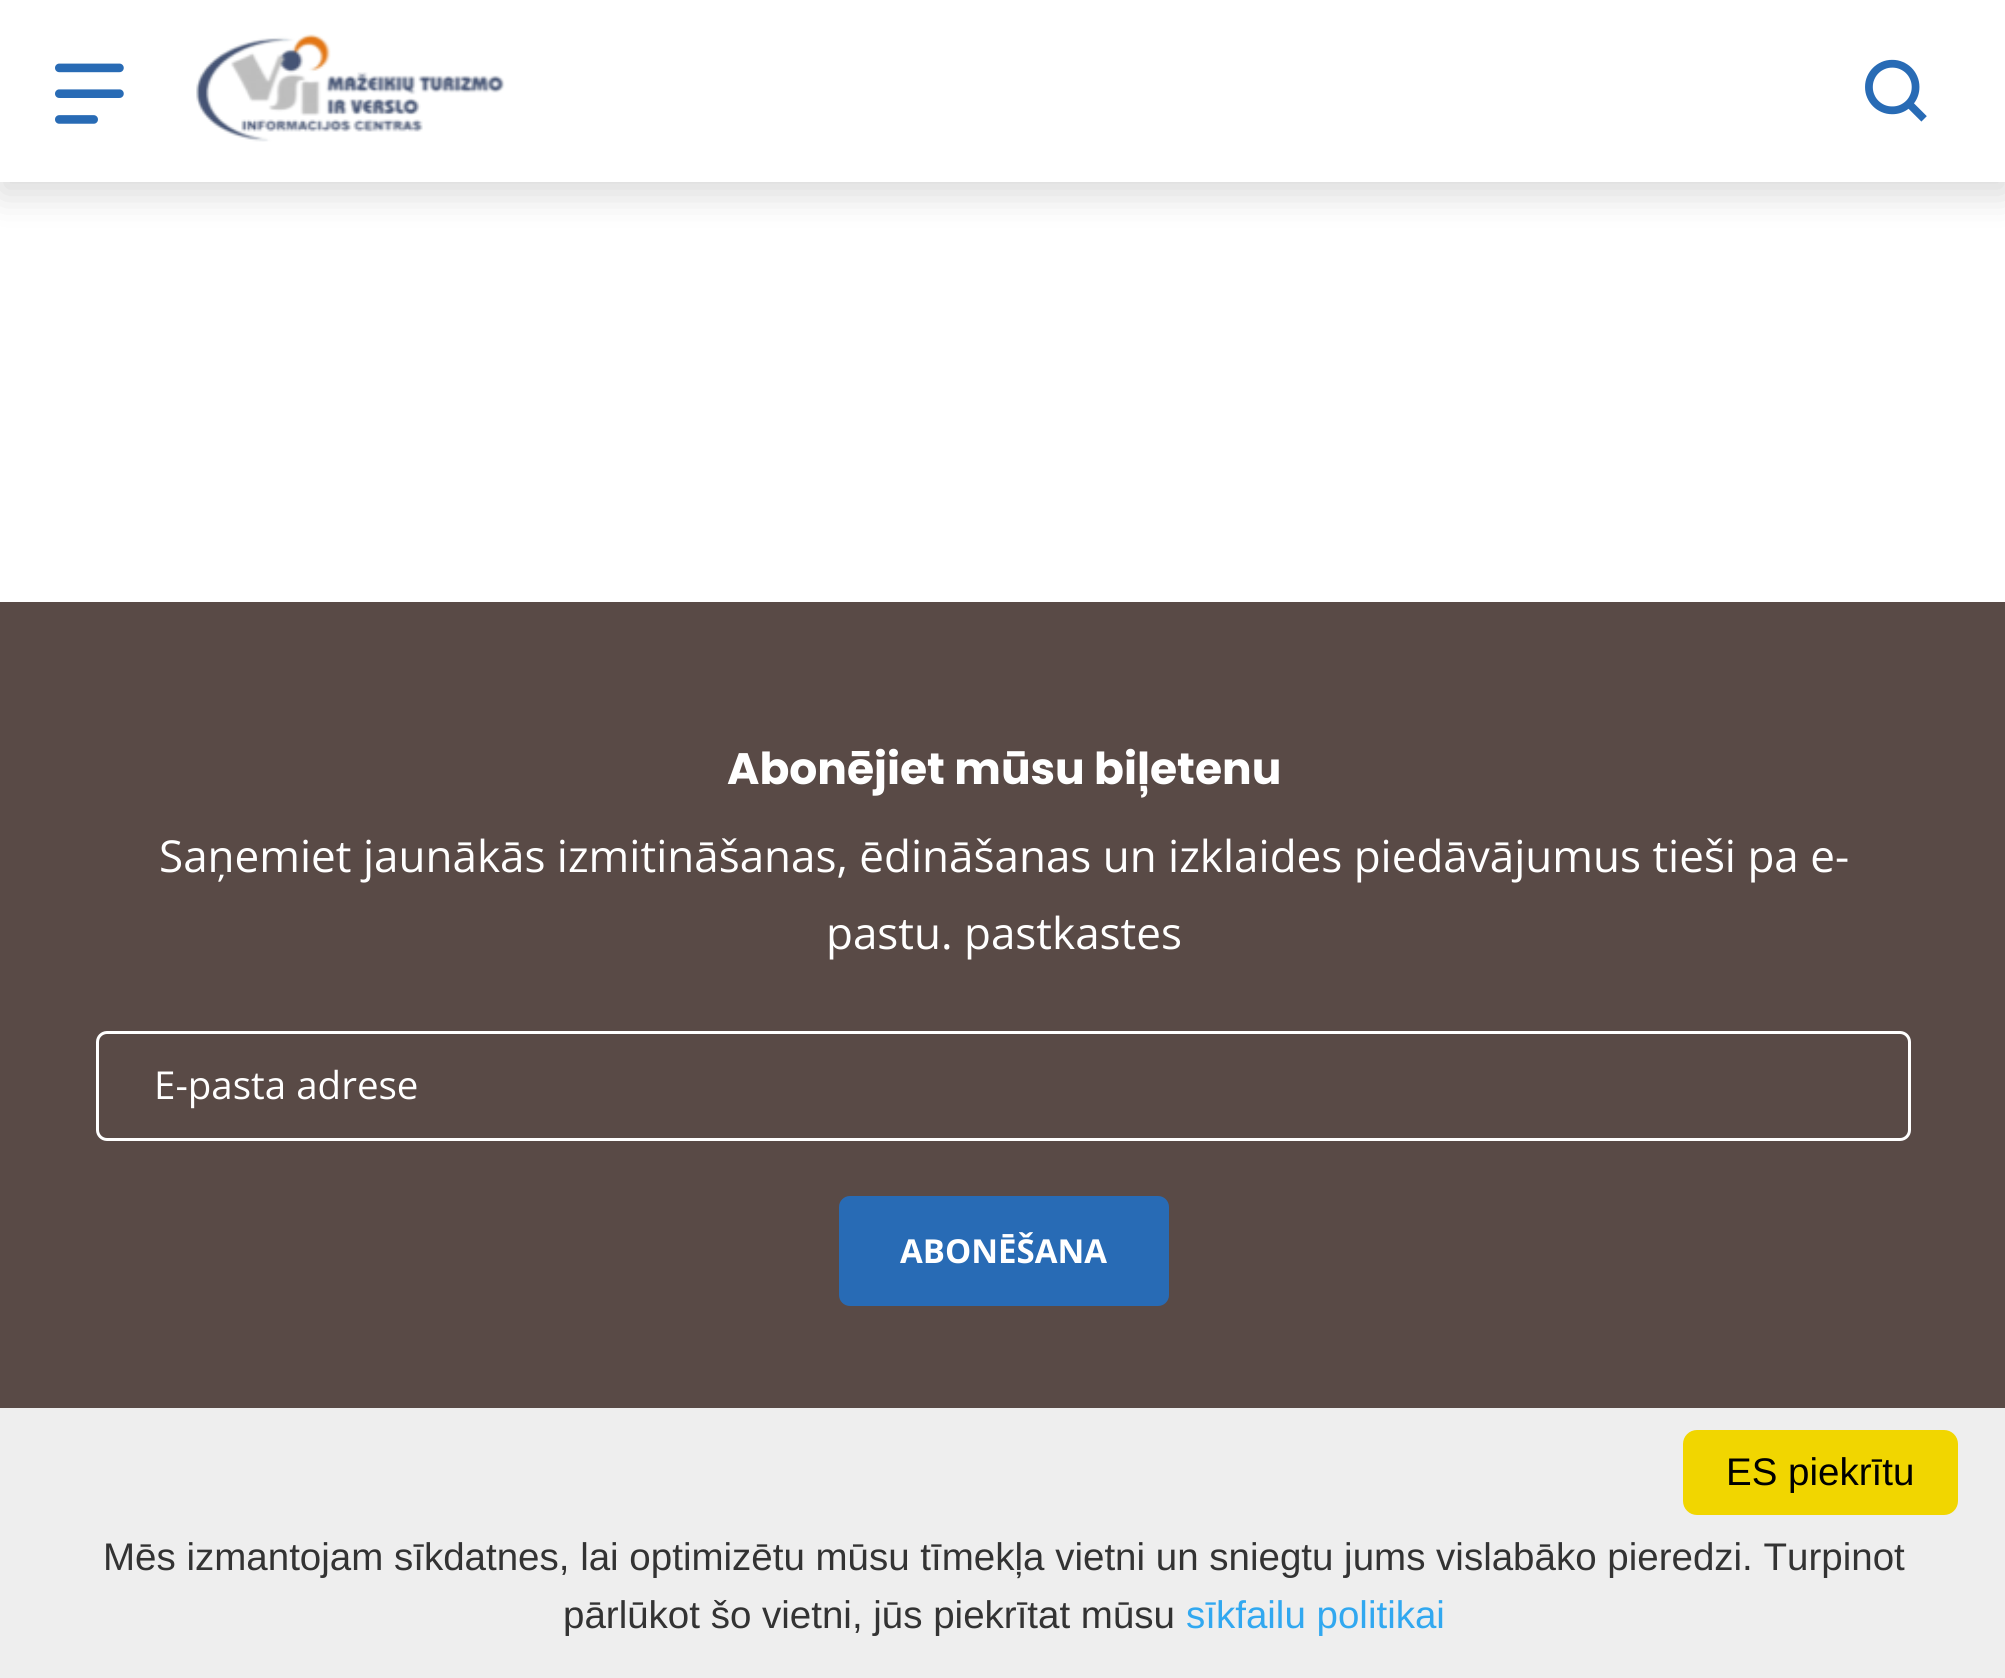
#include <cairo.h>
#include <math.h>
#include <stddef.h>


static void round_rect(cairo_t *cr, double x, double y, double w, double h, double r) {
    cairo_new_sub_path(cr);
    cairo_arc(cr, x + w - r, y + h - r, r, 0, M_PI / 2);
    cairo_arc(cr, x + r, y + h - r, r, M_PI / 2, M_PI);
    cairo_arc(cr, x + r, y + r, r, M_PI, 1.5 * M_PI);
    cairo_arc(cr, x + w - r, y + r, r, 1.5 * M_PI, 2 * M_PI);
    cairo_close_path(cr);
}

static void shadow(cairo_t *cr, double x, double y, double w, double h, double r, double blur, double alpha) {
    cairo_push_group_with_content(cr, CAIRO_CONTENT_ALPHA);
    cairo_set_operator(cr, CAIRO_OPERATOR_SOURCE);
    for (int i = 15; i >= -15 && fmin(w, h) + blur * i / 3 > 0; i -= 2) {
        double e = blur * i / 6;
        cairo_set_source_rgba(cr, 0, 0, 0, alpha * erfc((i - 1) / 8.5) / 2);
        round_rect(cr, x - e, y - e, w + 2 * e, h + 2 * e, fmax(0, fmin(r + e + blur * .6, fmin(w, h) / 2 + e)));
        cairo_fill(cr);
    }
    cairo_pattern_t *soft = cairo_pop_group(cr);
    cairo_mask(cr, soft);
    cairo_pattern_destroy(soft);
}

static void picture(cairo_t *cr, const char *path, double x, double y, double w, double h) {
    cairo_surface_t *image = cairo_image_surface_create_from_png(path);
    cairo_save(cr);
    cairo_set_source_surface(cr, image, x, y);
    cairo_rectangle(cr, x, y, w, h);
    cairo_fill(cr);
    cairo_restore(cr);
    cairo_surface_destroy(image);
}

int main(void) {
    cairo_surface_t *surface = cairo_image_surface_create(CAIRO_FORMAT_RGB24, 2005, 1678);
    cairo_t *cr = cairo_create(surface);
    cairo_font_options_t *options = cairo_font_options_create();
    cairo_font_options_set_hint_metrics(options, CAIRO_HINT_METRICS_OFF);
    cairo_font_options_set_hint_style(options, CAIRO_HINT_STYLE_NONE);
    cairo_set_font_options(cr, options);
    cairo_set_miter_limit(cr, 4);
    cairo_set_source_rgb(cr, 1, 1, 1);
    cairo_paint(cr);
    cairo_set_source_rgb(cr, 0, 0, 0);
    shadow(cr, 0, 11, 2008, 182, 0, 19, 0.16);
    cairo_set_source_rgb(cr, 1, 1, 1);
    cairo_rectangle(cr, 0, 0, 2005, 182);
    cairo_fill(cr);
    picture(cr, "img1.png", 55, 63, 69, 61);
    picture(cr, "img2.png", 196, 34, 309, 108);
    picture(cr, "img3.png", 1865, 59, 62, 63);
    cairo_set_source_rgb(cr, 0.349, 0.29, 0.275);
    cairo_rectangle(cr, 0, 602, 2005, 806);
    cairo_fill(cr);
    cairo_select_font_face(cr, "Poppins", CAIRO_FONT_SLANT_NORMAL, CAIRO_FONT_WEIGHT_BOLD);
    cairo_set_font_size(cr, 44);
    cairo_set_source_rgb(cr, 1, 1, 1);
    cairo_move_to(cr, 727, 784);
    cairo_show_text(cr, "Abonējiet mūsu biļetenu");
    cairo_select_font_face(cr, "Open Sans", CAIRO_FONT_SLANT_NORMAL, CAIRO_FONT_WEIGHT_NORMAL);
    cairo_move_to(cr, 159, 872);
    cairo_show_text(cr, "Saņemiet jaunākās izmitināšanas, ēdināšanas un izklaides piedāvājumus tieši pa e-");
    cairo_move_to(cr, 826, 949);
    cairo_show_text(cr, "pastu. pastkastes");
    round_rect(cr, 97.5, 1032.5, 1812, 107, 9.5);
    cairo_set_line_width(cr, 3);
    cairo_stroke(cr);
    cairo_set_font_size(cr, 38.5);
    cairo_move_to(cr, 154, 1099);
    cairo_show_text(cr, "E-pasta adrese");
    cairo_set_source_rgb(cr, 0.157, 0.42, 0.71);
    round_rect(cr, 839, 1196, 330, 110, 11);
    cairo_fill(cr);
    cairo_select_font_face(cr, "Open Sans", CAIRO_FONT_SLANT_NORMAL, CAIRO_FONT_WEIGHT_BOLD);
    cairo_set_font_size(cr, 33);
    cairo_set_source_rgb(cr, 1, 1, 1);
    cairo_move_to(cr, 900, 1263);
    cairo_show_text(cr, "ABONĒŠANA");
    cairo_set_source_rgb(cr, 0.933, 0.933, 0.933);
    cairo_rectangle(cr, 0, 1408, 2005, 270);
    cairo_fill(cr);
    cairo_set_source_rgb(cr, 0.945, 0.839, 0);
    round_rect(cr, 1683, 1430, 275, 85, 14);
    cairo_fill(cr);
    cairo_select_font_face(cr, "Liberation Sans", CAIRO_FONT_SLANT_NORMAL, CAIRO_FONT_WEIGHT_NORMAL);
    cairo_set_font_size(cr, 38.5);
    cairo_set_source_rgb(cr, 0, 0, 0);
    cairo_move_to(cr, 1726, 1485);
    cairo_show_text(cr, "ES piekrītu");
    cairo_set_source_rgb(cr, 0.2, 0.2, 0.2);
    cairo_move_to(cr, 103, 1570);
    cairo_show_text(cr, "Mēs izmantojam sīkdatnes, lai optimizētu mūsu tīmekļa vietni un sniegtu jums vislabāko pieredzi. Turpinot");
    cairo_move_to(cr, 563, 1628);
    cairo_show_text(cr, "pārlūkot šo vietni, jūs piekrītat mūsu");
    cairo_set_source_rgb(cr, 0.192, 0.659, 0.941);
    cairo_move_to(cr, 1186, 1628);
    cairo_show_text(cr, "sīkfailu politikai");
    cairo_surface_write_to_png(surface, "page.png");
    cairo_font_options_destroy(options);
    cairo_destroy(cr);
    cairo_surface_destroy(surface);
    return 0;
}
